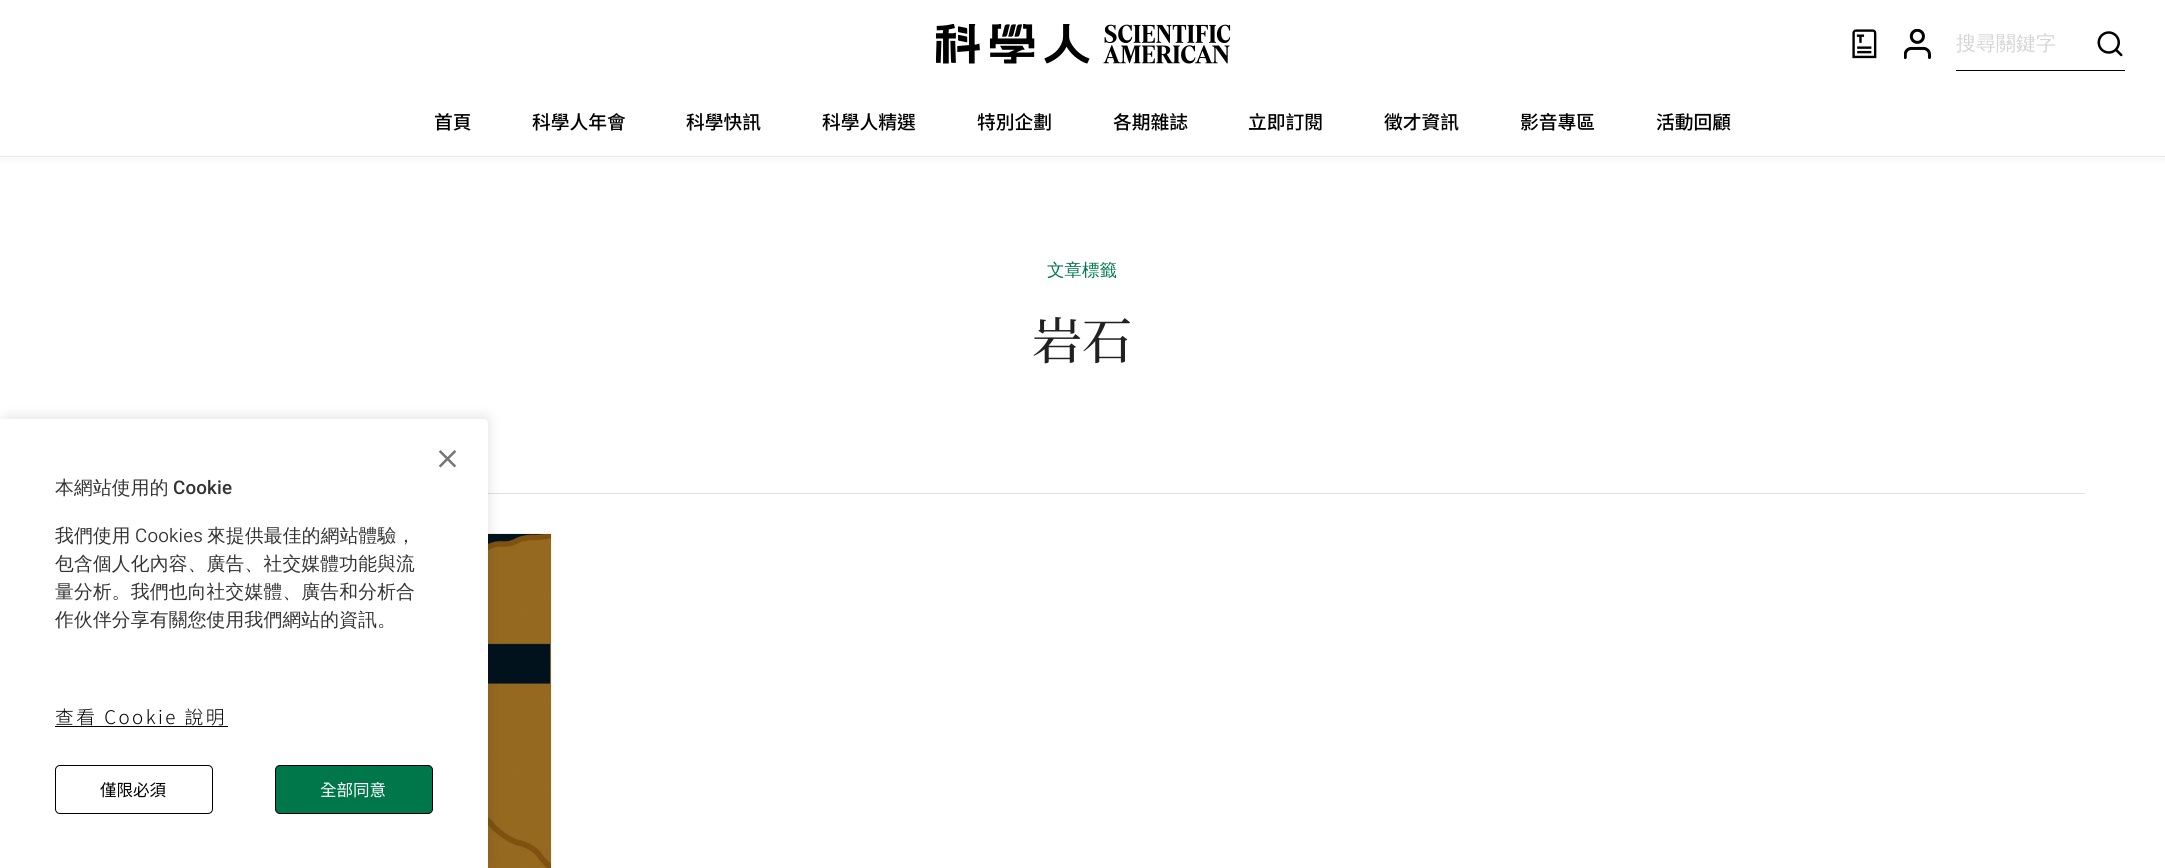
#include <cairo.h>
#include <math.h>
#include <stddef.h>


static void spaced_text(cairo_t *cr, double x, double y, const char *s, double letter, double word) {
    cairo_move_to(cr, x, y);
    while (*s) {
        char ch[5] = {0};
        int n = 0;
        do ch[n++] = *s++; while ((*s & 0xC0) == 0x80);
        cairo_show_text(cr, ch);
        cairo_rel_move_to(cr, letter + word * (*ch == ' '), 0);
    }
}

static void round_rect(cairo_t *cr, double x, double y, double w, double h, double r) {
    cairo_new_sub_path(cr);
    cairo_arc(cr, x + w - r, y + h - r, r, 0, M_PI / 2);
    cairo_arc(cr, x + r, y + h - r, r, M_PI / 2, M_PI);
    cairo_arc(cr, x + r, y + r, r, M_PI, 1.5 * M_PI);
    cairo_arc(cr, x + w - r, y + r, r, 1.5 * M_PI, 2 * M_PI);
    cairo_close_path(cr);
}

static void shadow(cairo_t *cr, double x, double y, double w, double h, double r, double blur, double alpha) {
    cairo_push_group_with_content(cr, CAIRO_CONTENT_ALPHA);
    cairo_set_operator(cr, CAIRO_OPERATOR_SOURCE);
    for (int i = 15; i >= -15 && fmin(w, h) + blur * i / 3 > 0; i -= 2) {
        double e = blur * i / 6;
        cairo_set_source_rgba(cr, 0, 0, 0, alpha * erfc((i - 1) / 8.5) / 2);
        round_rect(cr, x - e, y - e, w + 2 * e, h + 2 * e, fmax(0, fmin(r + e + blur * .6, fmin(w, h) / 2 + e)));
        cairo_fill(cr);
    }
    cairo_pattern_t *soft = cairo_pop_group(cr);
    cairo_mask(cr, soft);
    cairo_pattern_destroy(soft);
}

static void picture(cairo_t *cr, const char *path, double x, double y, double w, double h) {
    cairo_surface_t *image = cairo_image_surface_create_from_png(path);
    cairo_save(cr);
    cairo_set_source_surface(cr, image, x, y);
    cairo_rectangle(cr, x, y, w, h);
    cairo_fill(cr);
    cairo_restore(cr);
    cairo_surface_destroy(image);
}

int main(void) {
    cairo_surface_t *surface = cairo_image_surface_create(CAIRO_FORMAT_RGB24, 2165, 868);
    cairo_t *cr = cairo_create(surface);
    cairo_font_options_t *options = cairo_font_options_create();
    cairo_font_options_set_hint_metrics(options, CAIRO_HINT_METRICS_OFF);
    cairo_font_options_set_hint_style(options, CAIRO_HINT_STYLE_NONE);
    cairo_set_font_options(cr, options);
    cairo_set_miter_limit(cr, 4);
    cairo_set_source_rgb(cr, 1, 1, 1);
    cairo_paint(cr);
    picture(cr, "img1.png", 935, 24, 296, 40);
    picture(cr, "img2.png", 1852, 29, 25, 30);
    picture(cr, "img3.png", 1904, 29, 27, 30);
    cairo_set_source_rgb(cr, 0, 0, 0);
    cairo_rectangle(cr, 1956, 70, 169, 1);
    cairo_fill(cr);
    cairo_select_font_face(cr, "WenQuanYi Zen Hei Medium", CAIRO_FONT_SLANT_NORMAL, CAIRO_FONT_WEIGHT_NORMAL);
    cairo_set_font_size(cr, 20);
    cairo_set_source_rgb(cr, 0.831, 0.831, 0.831);
    cairo_move_to(cr, 1956, 50);
    cairo_show_text(cr, "搜尋關鍵字");
    picture(cr, "img4.png", 2097, 31, 26, 26);
    cairo_set_source_rgb(cr, 0.592, 0.592, 0.592);
    shadow(cr, 0, 89, 2165, 71, 0, 2.5, 0.1);
    cairo_set_source_rgb(cr, 1, 1, 1);
    cairo_rectangle(cr, 0, 87, 2165, 71);
    cairo_fill(cr);
    cairo_set_source_rgb(cr, 0.898, 0.898, 0.898);
    cairo_rectangle(cr, 0, 156, 2165, 1);
    cairo_fill(cr);
    cairo_select_font_face(cr, "Noto Sans TC Medium", CAIRO_FONT_SLANT_NORMAL, CAIRO_FONT_WEIGHT_NORMAL);
    cairo_set_font_size(cr, 18.75);
    cairo_set_source_rgb(cr, 0, 0, 0);
    cairo_move_to(cr, 434, 129);
    cairo_show_text(cr, "首頁");
    cairo_move_to(cr, 532, 129);
    cairo_show_text(cr, "科學人年會");
    cairo_move_to(cr, 686, 129);
    cairo_show_text(cr, "科學快訊");
    cairo_move_to(cr, 822, 129);
    cairo_show_text(cr, "科學人精選");
    cairo_move_to(cr, 977, 129);
    cairo_show_text(cr, "特別企劃");
    cairo_move_to(cr, 1113, 129);
    cairo_show_text(cr, "各期雜誌");
    cairo_move_to(cr, 1248, 129);
    cairo_show_text(cr, "立即訂閱");
    cairo_move_to(cr, 1384, 129);
    cairo_show_text(cr, "徵才資訊");
    cairo_move_to(cr, 1520, 129);
    cairo_show_text(cr, "影音專區");
    cairo_move_to(cr, 1656, 129);
    cairo_show_text(cr, "活動回顧");
    cairo_select_font_face(cr, "WenQuanYi Zen Hei Medium", CAIRO_FONT_SLANT_NORMAL, CAIRO_FONT_WEIGHT_NORMAL);
    cairo_set_font_size(cr, 17.5);
    cairo_set_source_rgb(cr, 0, 0.467, 0.294);
    cairo_move_to(cr, 1047, 276);
    cairo_show_text(cr, "文章標籤");
    cairo_select_font_face(cr, "Noto Serif TC Medium", CAIRO_FONT_SLANT_NORMAL, CAIRO_FONT_WEIGHT_NORMAL);
    cairo_set_font_size(cr, 50);
    cairo_set_source_rgb(cr, 0.129, 0.129, 0.129);
    cairo_move_to(cr, 1032, 359);
    cairo_show_text(cr, "岩石");
    cairo_set_source_rgb(cr, 0.878, 0.878, 0.878);
    cairo_rectangle(cr, 488, 493, 1597, 1);
    cairo_fill(cr);
    picture(cr, "img5.png", 488, 533, 64, 335);
    cairo_set_source_rgb(cr, 0, 0, 0);
    shadow(cr, 3, 416, 487, 450, 5, 6, 0.1);
    cairo_set_source_rgb(cr, 1, 1, 1);
    cairo_new_path(cr);
    cairo_move_to(cr, 0, 419);
    cairo_line_to(cr, 483, 419);
    cairo_curve_to(cr, 486, 419, 488, 421, 488, 424);
    cairo_line_to(cr, 488, 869);
    cairo_line_to(cr, 0, 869);
    cairo_close_path(cr);
    cairo_fill(cr);
    picture(cr, "img6.png", 438, 450, 19, 18);
    cairo_select_font_face(cr, "WenQuanYi Zen Hei Medium", CAIRO_FONT_SLANT_NORMAL, CAIRO_FONT_WEIGHT_NORMAL);
    cairo_set_font_size(cr, 18.75);
    cairo_set_source_rgb(cr, 0.2, 0.2, 0.2);
    spaced_text(cr, 55, 494, "本網站使用的", 0.2, 0);
    cairo_select_font_face(cr, "Roboto Medium", CAIRO_FONT_SLANT_NORMAL, CAIRO_FONT_WEIGHT_NORMAL);
    spaced_text(cr, 173, 494, "Cookie", 0.2, 0);
    cairo_select_font_face(cr, "WenQuanYi Zen Hei Medium", CAIRO_FONT_SLANT_NORMAL, CAIRO_FONT_WEIGHT_NORMAL);
    spaced_text(cr, 55, 542, "我們使用", 0.2, 0);
    cairo_select_font_face(cr, "Roboto Light", CAIRO_FONT_SLANT_NORMAL, CAIRO_FONT_WEIGHT_NORMAL);
    spaced_text(cr, 135, 542, "Cookies", 0.2, 0);
    cairo_select_font_face(cr, "WenQuanYi Zen Hei Medium", CAIRO_FONT_SLANT_NORMAL, CAIRO_FONT_WEIGHT_NORMAL);
    spaced_text(cr, 207, 542, "來提供最佳的網站體驗，", 0.2, 0);
    spaced_text(cr, 55, 570, "包含個人化內容、廣告、社交媒體功能與流", 0.2, 0);
    spaced_text(cr, 55, 598, "量分析。我們也向社交媒體、廣告和分析合", 0.2, 0);
    spaced_text(cr, 55, 626, "作伙伴分享有關您使用我們網站的資訊。", 0.2, 0);
    cairo_select_font_face(cr, "Noto Sans TC Light", CAIRO_FONT_SLANT_NORMAL, CAIRO_FONT_WEIGHT_NORMAL);
    cairo_set_source_rgb(cr, 0, 0, 0);
    spaced_text(cr, 55, 724, "查看 Cookie 說明", 2.5, 0);
    cairo_rectangle(cr, 55, 726, 173, 1);
    cairo_fill(cr);
    round_rect(cr, 55.5, 765.5, 157, 48, 4.5);
    cairo_set_line_width(cr, 1);
    cairo_stroke(cr);
    cairo_select_font_face(cr, "Noto Sans TC", CAIRO_FONT_SLANT_NORMAL, CAIRO_FONT_WEIGHT_NORMAL);
    cairo_set_font_size(cr, 16.5);
    cairo_move_to(cr, 100, 796);
    cairo_show_text(cr, "僅限必須");
    cairo_set_source_rgb(cr, 0, 0.467, 0.294);
    round_rect(cr, 275.5, 765.5, 157, 48, 4.5);
    cairo_fill_preserve(cr);
    cairo_set_source_rgb(cr, 0, 0, 0);
    cairo_stroke(cr);
    cairo_set_source_rgb(cr, 1, 1, 1);
    cairo_move_to(cr, 320, 796);
    cairo_show_text(cr, "全部同意");
    cairo_surface_write_to_png(surface, "page.png");
    cairo_font_options_destroy(options);
    cairo_destroy(cr);
    cairo_surface_destroy(surface);
    return 0;
}
